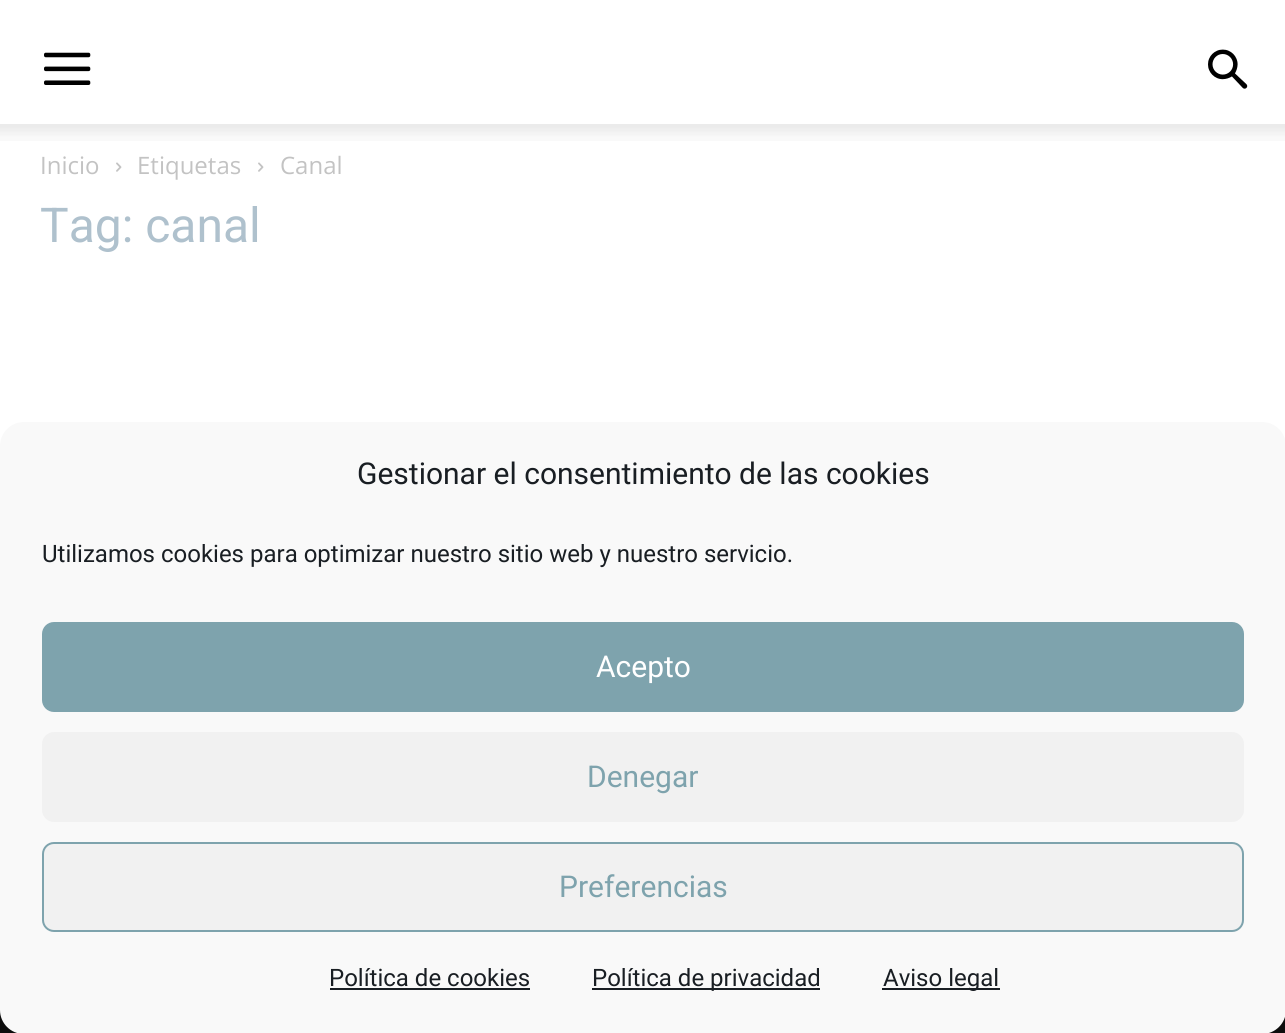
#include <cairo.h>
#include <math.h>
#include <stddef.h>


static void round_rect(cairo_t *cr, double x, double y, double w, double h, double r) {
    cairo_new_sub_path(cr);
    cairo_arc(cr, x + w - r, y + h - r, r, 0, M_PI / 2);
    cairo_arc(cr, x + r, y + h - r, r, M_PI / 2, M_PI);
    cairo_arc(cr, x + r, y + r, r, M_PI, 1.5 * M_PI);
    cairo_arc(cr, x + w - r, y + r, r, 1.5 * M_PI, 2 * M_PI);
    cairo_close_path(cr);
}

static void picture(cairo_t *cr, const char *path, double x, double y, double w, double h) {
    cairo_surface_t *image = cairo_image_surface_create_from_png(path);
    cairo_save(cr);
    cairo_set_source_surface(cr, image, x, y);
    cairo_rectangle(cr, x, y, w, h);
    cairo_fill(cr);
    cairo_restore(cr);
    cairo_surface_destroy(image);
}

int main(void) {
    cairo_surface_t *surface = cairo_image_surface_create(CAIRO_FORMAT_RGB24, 1285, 1033);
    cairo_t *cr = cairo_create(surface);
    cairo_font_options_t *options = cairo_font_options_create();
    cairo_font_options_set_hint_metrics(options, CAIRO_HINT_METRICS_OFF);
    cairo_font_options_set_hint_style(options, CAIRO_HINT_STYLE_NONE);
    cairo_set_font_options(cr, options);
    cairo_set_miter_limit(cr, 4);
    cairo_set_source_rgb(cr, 1, 1, 1);
    cairo_paint(cr);
    picture(cr, "img1.png", 44, 52, 47, 33);
    picture(cr, "img2.png", 1208, 49, 40, 40);
    picture(cr, "img3.png", 0, 124, 1285, 17);
    cairo_select_font_face(cr, "Open Sans", CAIRO_FONT_SLANT_NORMAL, CAIRO_FONT_WEIGHT_NORMAL);
    cairo_set_font_size(cr, 24);
    cairo_set_source_rgb(cr, 0.765, 0.765, 0.765);
    cairo_move_to(cr, 40, 174);
    cairo_show_text(cr, "Inicio");
    picture(cr, "img4.png", 116, 162, 6, 10);
    cairo_move_to(cr, 137, 174);
    cairo_show_text(cr, "Etiquetas");
    picture(cr, "img4.png", 258, 162, 6, 10);
    cairo_move_to(cr, 280, 174);
    cairo_show_text(cr, "Canal");
    cairo_select_font_face(cr, "Roboto", CAIRO_FONT_SLANT_NORMAL, CAIRO_FONT_WEIGHT_NORMAL);
    cairo_set_font_size(cr, 48);
    cairo_set_source_rgb(cr, 0.686, 0.757, 0.804);
    cairo_move_to(cr, 40, 242);
    cairo_show_text(cr, "Tag: canal");
    cairo_set_source_rgb(cr, 0.051, 0.051, 0.051);
    cairo_rectangle(cr, 0, 1010, 1285, 23);
    cairo_fill(cr);
    cairo_set_source_rgb(cr, 0.976, 0.976, 0.976);
    round_rect(cr, 1, 423, 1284, 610, 23);
    cairo_fill_preserve(cr);
    cairo_stroke(cr);
    cairo_set_font_size(cr, 30);
    cairo_set_source_rgb(cr, 0.098, 0.118, 0.137);
    cairo_move_to(cr, 357, 484);
    cairo_show_text(cr, "Gestionar el consentimiento de las cookies");
    cairo_set_font_size(cr, 24);
    cairo_move_to(cr, 42, 562);
    cairo_show_text(cr, "Utilizamos cookies para optimizar nuestro sitio web y nuestro servicio.");
    cairo_set_source_rgb(cr, 0.494, 0.639, 0.678);
    round_rect(cr, 43, 623, 1200, 88, 11);
    cairo_fill_preserve(cr);
    cairo_stroke(cr);
    cairo_set_font_size(cr, 30);
    cairo_set_source_rgb(cr, 1, 1, 1);
    cairo_move_to(cr, 596, 677);
    cairo_show_text(cr, "Acepto");
    cairo_set_source_rgb(cr, 0.945, 0.945, 0.945);
    round_rect(cr, 42, 732, 1202, 90, 12);
    cairo_fill(cr);
    cairo_set_source_rgb(cr, 0.494, 0.639, 0.678);
    cairo_move_to(cr, 587, 787);
    cairo_show_text(cr, "Denegar");
    cairo_set_source_rgb(cr, 0.945, 0.945, 0.945);
    round_rect(cr, 43, 843, 1200, 88, 11);
    cairo_fill_preserve(cr);
    cairo_set_source_rgb(cr, 0.494, 0.639, 0.678);
    cairo_stroke(cr);
    cairo_move_to(cr, 559, 897);
    cairo_show_text(cr, "Preferencias");
    cairo_set_font_size(cr, 24);
    cairo_set_source_rgb(cr, 0.098, 0.118, 0.137);
    cairo_move_to(cr, 329, 986);
    cairo_show_text(cr, "Política de cookies");
    cairo_rectangle(cr, 330, 988, 200, 2);
    cairo_fill(cr);
    cairo_rectangle(cr, 592, 988, 228, 2);
    cairo_fill(cr);
    cairo_move_to(cr, 592, 986);
    cairo_show_text(cr, "Política de privacidad");
    cairo_rectangle(cr, 882, 988, 118, 2);
    cairo_fill(cr);
    cairo_move_to(cr, 883, 986);
    cairo_show_text(cr, "Aviso legal");
    cairo_surface_write_to_png(surface, "page.png");
    cairo_font_options_destroy(options);
    cairo_destroy(cr);
    cairo_surface_destroy(surface);
    return 0;
}
